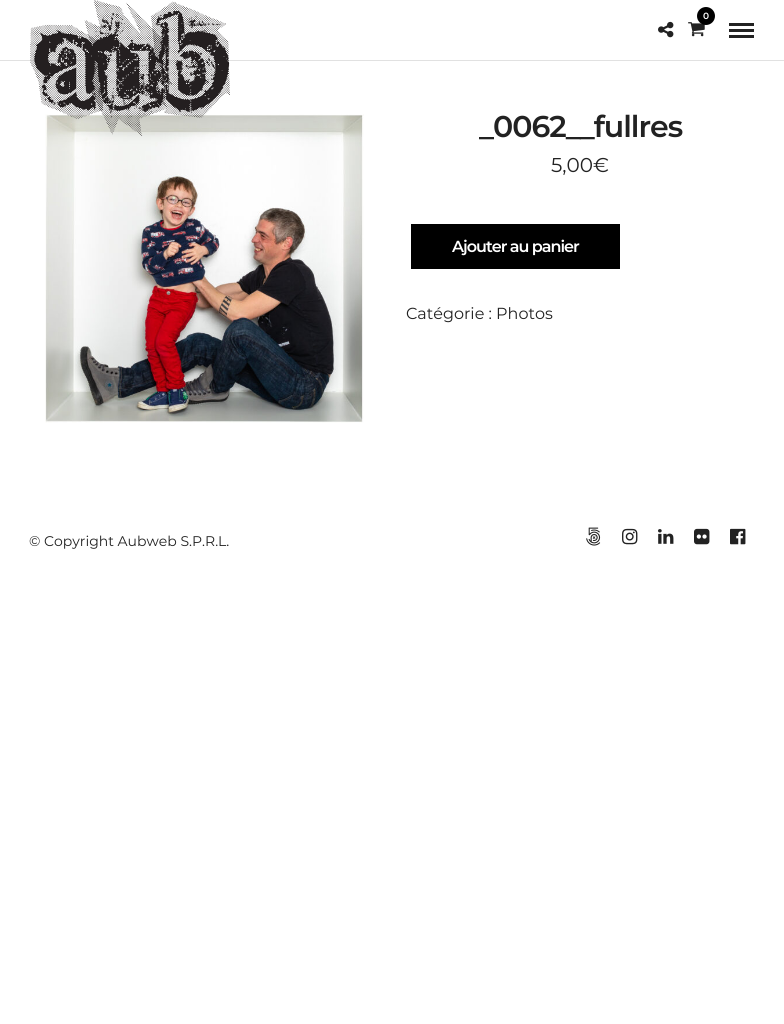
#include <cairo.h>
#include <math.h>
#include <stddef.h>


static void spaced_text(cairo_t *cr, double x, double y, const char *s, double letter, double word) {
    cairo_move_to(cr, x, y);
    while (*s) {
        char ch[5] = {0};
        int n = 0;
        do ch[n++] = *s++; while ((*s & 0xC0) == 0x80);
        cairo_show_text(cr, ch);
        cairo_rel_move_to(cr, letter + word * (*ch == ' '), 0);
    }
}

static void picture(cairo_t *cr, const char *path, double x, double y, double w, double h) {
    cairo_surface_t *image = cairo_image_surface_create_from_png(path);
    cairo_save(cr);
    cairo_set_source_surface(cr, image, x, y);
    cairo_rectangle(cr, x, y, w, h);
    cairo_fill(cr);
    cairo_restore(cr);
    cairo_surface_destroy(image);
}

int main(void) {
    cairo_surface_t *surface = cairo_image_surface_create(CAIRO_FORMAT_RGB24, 784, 1024);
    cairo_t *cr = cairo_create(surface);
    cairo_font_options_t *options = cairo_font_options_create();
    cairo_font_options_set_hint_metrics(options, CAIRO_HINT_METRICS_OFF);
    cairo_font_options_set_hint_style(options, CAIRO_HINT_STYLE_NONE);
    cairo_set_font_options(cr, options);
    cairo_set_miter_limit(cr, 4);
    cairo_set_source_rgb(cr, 1, 1, 1);
    cairo_paint(cr);
    cairo_set_source_rgb(cr, 0.882, 0.882, 0.882);
    cairo_rectangle(cr, 0, 60, 784, 1);
    cairo_fill(cr);
    picture(cr, "img4.png", 45, 114, 319, 309);
    picture(cr, "img1.png", 30, 0, 200, 136);
    picture(cr, "img2.png", 688, 22, 17, 15);
    cairo_set_source_rgb(cr, 0, 0, 0);
    cairo_arc(cr, 706, 16, 9, 0, 2 * M_PI);
    cairo_fill(cr);
    cairo_select_font_face(cr, "Montserrat SemiBold", CAIRO_FONT_SLANT_NORMAL, CAIRO_FONT_WEIGHT_NORMAL);
    cairo_set_font_size(cr, 9);
    cairo_set_source_rgb(cr, 1, 1, 1);
    cairo_move_to(cr, 703, 19);
    cairo_show_text(cr, "0");
    picture(cr, "img3.png", 658, 21, 16, 17);
    cairo_set_source_rgb(cr, 0.133, 0.133, 0.133);
    cairo_rectangle(cr, 729, 23, 25, 3);
    cairo_fill(cr);
    cairo_rectangle(cr, 729, 29, 25, 3);
    cairo_fill(cr);
    cairo_rectangle(cr, 729, 35, 25, 3);
    cairo_fill(cr);
    cairo_set_font_size(cr, 30);
    spaced_text(cr, 479, 137, "_0062__fullres", -1, 0);
    cairo_select_font_face(cr, "Montserrat", CAIRO_FONT_SLANT_NORMAL, CAIRO_FONT_WEIGHT_NORMAL);
    cairo_set_font_size(cr, 20);
    cairo_move_to(cr, 551, 172);
    cairo_show_text(cr, "5,00€");
    cairo_set_source_rgb(cr, 0, 0, 0);
    cairo_rectangle(cr, 411, 224, 209, 45);
    cairo_fill(cr);
    cairo_select_font_face(cr, "Montserrat SemiBold", CAIRO_FONT_SLANT_NORMAL, CAIRO_FONT_WEIGHT_NORMAL);
    cairo_set_font_size(cr, 16);
    cairo_set_source_rgb(cr, 1, 1, 1);
    spaced_text(cr, 452, 252, "Ajouter au panier", -1, 0);
    cairo_select_font_face(cr, "Montserrat", CAIRO_FONT_SLANT_NORMAL, CAIRO_FONT_WEIGHT_NORMAL);
    cairo_set_source_rgb(cr, 0.133, 0.133, 0.133);
    cairo_move_to(cr, 406, 319);
    cairo_show_text(cr, "Catégorie : Photos");
    cairo_set_font_size(cr, 14);
    cairo_move_to(cr, 29, 546);
    cairo_show_text(cr, "© Copyright Aubweb S.P.R.L.");
    picture(cr, "img5.png", 586, 527, 15, 19);
    picture(cr, "img6.png", 622, 528, 16, 17);
    picture(cr, "img7.png", 658, 529, 16, 15);
    picture(cr, "img8.png", 694, 528, 16, 17);
    picture(cr, "img9.png", 730, 528, 16, 17);
    cairo_surface_write_to_png(surface, "page.png");
    cairo_font_options_destroy(options);
    cairo_destroy(cr);
    cairo_surface_destroy(surface);
    return 0;
}
